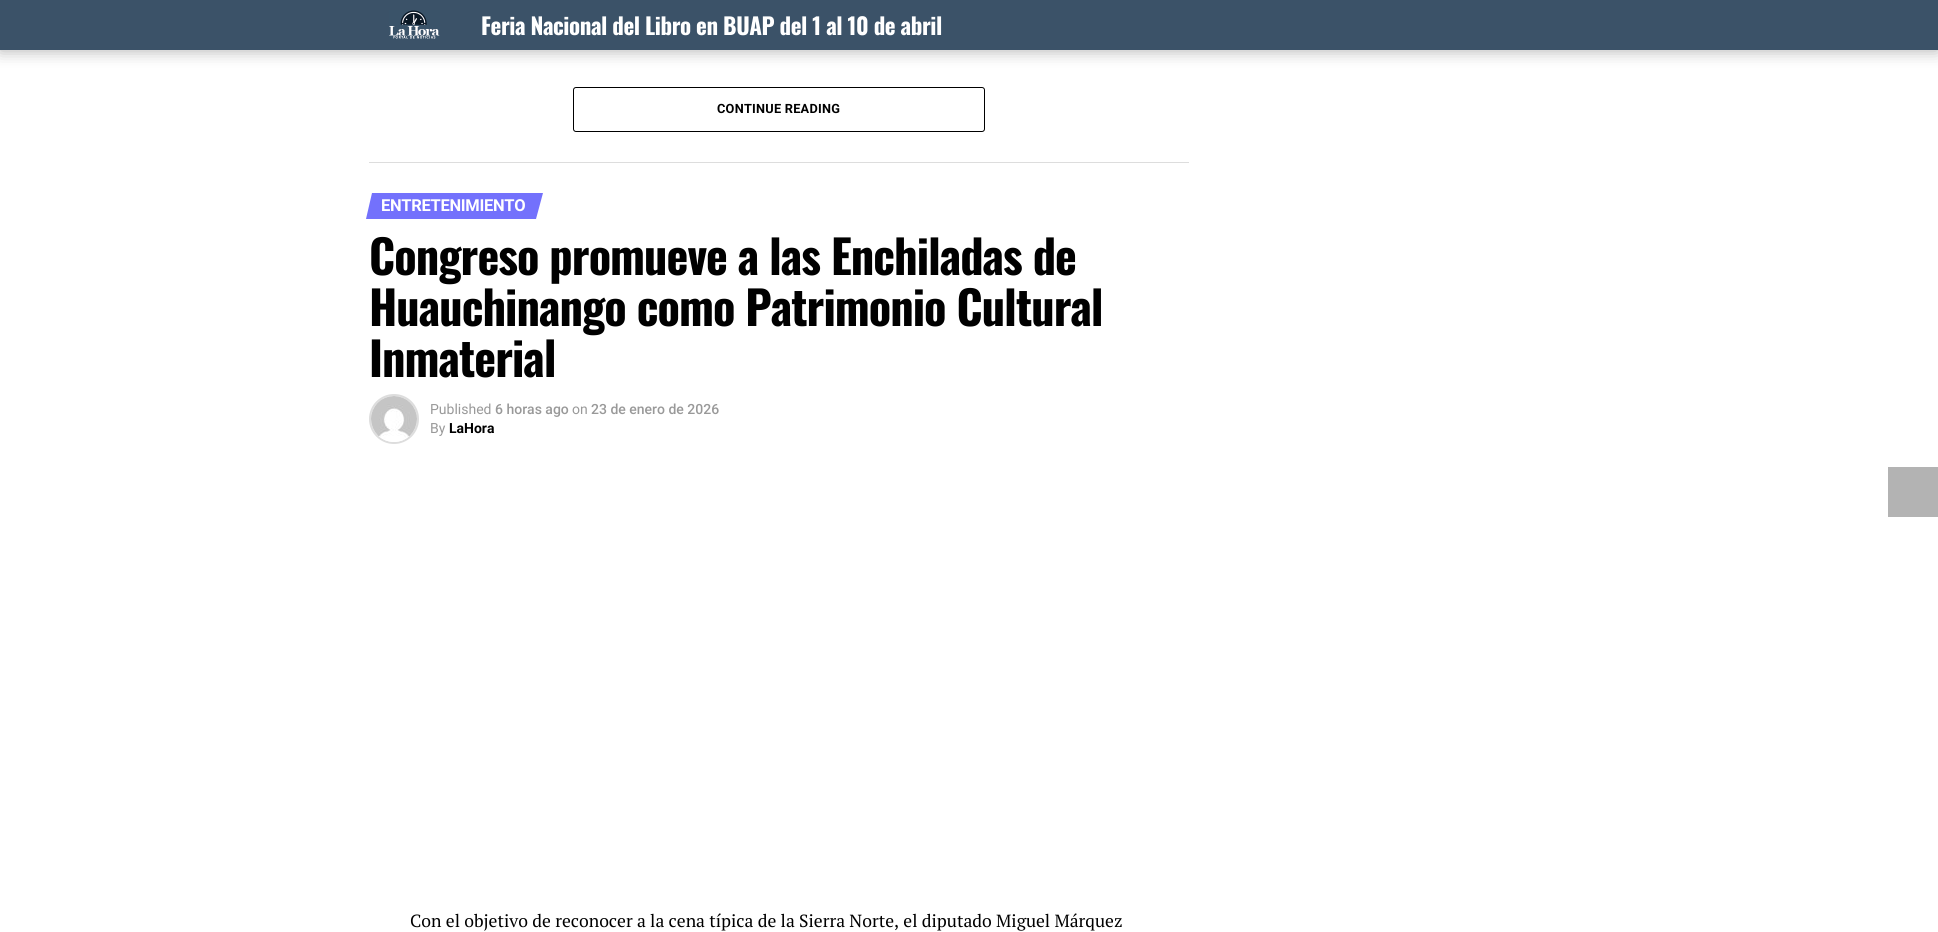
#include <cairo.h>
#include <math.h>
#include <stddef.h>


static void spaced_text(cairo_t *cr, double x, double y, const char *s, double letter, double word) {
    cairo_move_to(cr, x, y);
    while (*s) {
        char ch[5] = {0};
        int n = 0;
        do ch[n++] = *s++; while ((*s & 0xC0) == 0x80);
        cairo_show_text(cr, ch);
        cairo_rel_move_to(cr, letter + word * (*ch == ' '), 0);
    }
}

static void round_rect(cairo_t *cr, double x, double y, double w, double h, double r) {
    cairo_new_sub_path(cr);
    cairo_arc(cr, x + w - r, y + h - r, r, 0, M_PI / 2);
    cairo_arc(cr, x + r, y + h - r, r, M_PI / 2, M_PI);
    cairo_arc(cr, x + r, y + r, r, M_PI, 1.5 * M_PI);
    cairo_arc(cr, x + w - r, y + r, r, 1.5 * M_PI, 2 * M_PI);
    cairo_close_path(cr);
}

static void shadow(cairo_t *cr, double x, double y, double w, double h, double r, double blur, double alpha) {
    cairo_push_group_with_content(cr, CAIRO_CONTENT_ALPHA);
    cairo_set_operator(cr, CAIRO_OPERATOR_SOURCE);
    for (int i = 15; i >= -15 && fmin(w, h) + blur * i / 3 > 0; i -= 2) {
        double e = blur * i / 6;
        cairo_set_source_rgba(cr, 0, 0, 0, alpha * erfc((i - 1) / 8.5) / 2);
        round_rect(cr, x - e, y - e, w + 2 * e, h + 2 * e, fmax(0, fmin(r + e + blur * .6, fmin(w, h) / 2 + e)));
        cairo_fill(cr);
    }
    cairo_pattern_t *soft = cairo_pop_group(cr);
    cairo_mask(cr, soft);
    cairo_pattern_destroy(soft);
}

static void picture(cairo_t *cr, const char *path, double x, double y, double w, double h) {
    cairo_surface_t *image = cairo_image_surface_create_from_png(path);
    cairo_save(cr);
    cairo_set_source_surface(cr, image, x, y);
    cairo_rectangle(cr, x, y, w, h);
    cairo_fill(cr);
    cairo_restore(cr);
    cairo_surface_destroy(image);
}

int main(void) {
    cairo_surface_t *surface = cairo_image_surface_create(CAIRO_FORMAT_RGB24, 1938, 932);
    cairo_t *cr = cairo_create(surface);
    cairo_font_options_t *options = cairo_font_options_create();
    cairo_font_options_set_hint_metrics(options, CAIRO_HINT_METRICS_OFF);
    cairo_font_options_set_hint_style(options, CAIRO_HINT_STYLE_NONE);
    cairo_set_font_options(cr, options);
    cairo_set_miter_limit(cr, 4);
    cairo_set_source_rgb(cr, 1, 1, 1);
    cairo_paint(cr);
    cairo_set_source_rgb(cr, 0, 0, 0);
    shadow(cr, 0, 1, 1938, 50, 0, 8, 0.3);
    cairo_set_source_rgb(cr, 0.231, 0.322, 0.408);
    cairo_rectangle(cr, 0, 0, 1938, 50);
    cairo_fill(cr);
    picture(cr, "img1.png", 389, 10, 51, 29);
    cairo_select_font_face(cr, "Oswald", CAIRO_FONT_SLANT_NORMAL, CAIRO_FONT_WEIGHT_BOLD);
    cairo_set_font_size(cr, 23);
    cairo_set_source_rgb(cr, 1, 1, 1);
    spaced_text(cr, 481, 35, "Feria Nacional del Libro en BUAP del 1 al 10 de abril", -0.45, 0);
    round_rect(cr, 573.5, 87.5, 411, 44, 2.5);
    cairo_set_source_rgb(cr, 0, 0, 0);
    cairo_set_line_width(cr, 1);
    cairo_stroke(cr);
    cairo_select_font_face(cr, "Roboto", CAIRO_FONT_SLANT_NORMAL, CAIRO_FONT_WEIGHT_BOLD);
    cairo_set_font_size(cr, 12.75);
    spaced_text(cr, 717, 113, "CONTINUE READING", 0.25, 0);
    cairo_set_source_rgb(cr, 0.867, 0.867, 0.867);
    cairo_rectangle(cr, 369, 162, 820, 1);
    cairo_fill(cr);
    cairo_set_source_rgb(cr, 0.451, 0.443, 0.988);
    cairo_new_path(cr);
    cairo_move_to(cr, 372, 193);
    cairo_line_to(cr, 543, 193);
    cairo_line_to(cr, 536, 219);
    cairo_line_to(cr, 366, 219);
    cairo_close_path(cr);
    cairo_fill(cr);
    cairo_set_font_size(cr, 16.5);
    cairo_set_source_rgb(cr, 1, 1, 1);
    spaced_text(cr, 381, 211, "ENTRETENIMIENTO", -0.3, 0);
    cairo_select_font_face(cr, "Oswald", CAIRO_FONT_SLANT_NORMAL, CAIRO_FONT_WEIGHT_BOLD);
    cairo_set_font_size(cr, 46.4);
    cairo_set_source_rgb(cr, 0, 0, 0);
    spaced_text(cr, 369, 275, "Congreso promueve a las Enchiladas de", -0.95, 0);
    spaced_text(cr, 369, 326, "Huauchinango como Patrimonio Cultural", -0.95, 0);
    spaced_text(cr, 369, 377, "Inmaterial", -0.95, 0);
    cairo_new_path(cr);
    cairo_arc(cr, 394, 419, 24, 0, 2 * M_PI);
    cairo_set_source_rgb(cr, 0.867, 0.867, 0.867);
    cairo_set_line_width(cr, 2);
    cairo_stroke(cr);
    picture(cr, "img2.png", 371, 396, 46, 46);
    cairo_select_font_face(cr, "Roboto", CAIRO_FONT_SLANT_NORMAL, CAIRO_FONT_WEIGHT_NORMAL);
    cairo_set_font_size(cr, 14);
    cairo_set_source_rgb(cr, 0.6, 0.6, 0.6);
    cairo_move_to(cr, 430, 414);
    cairo_show_text(cr, "Published");
    cairo_select_font_face(cr, "Roboto Medium", CAIRO_FONT_SLANT_NORMAL, CAIRO_FONT_WEIGHT_NORMAL);
    cairo_move_to(cr, 495, 414);
    cairo_show_text(cr, "6 horas ago");
    cairo_select_font_face(cr, "Roboto", CAIRO_FONT_SLANT_NORMAL, CAIRO_FONT_WEIGHT_NORMAL);
    cairo_move_to(cr, 572, 414);
    cairo_show_text(cr, "on");
    cairo_select_font_face(cr, "Roboto Medium", CAIRO_FONT_SLANT_NORMAL, CAIRO_FONT_WEIGHT_NORMAL);
    cairo_move_to(cr, 591, 414);
    cairo_show_text(cr, "23 de enero de 2026");
    cairo_select_font_face(cr, "Roboto", CAIRO_FONT_SLANT_NORMAL, CAIRO_FONT_WEIGHT_NORMAL);
    cairo_move_to(cr, 430, 433);
    cairo_show_text(cr, "By");
    cairo_select_font_face(cr, "Roboto", CAIRO_FONT_SLANT_NORMAL, CAIRO_FONT_WEIGHT_BOLD);
    cairo_set_source_rgb(cr, 0, 0, 0);
    cairo_move_to(cr, 449, 433);
    cairo_show_text(cr, "LaHora");
    cairo_select_font_face(cr, "PT Serif", CAIRO_FONT_SLANT_NORMAL, CAIRO_FONT_WEIGHT_NORMAL);
    cairo_set_font_size(cr, 17.6);
    cairo_move_to(cr, 410, 927);
    cairo_show_text(cr, "Con el objetivo de reconocer a la cena típica de la Sierra Norte, el diputado Miguel Márquez");
    cairo_set_source_rgb(cr, 0.702, 0.702, 0.702);
    cairo_rectangle(cr, 1888, 467, 50, 50);
    cairo_fill(cr);
    cairo_surface_write_to_png(surface, "page.png");
    cairo_font_options_destroy(options);
    cairo_destroy(cr);
    cairo_surface_destroy(surface);
    return 0;
}
